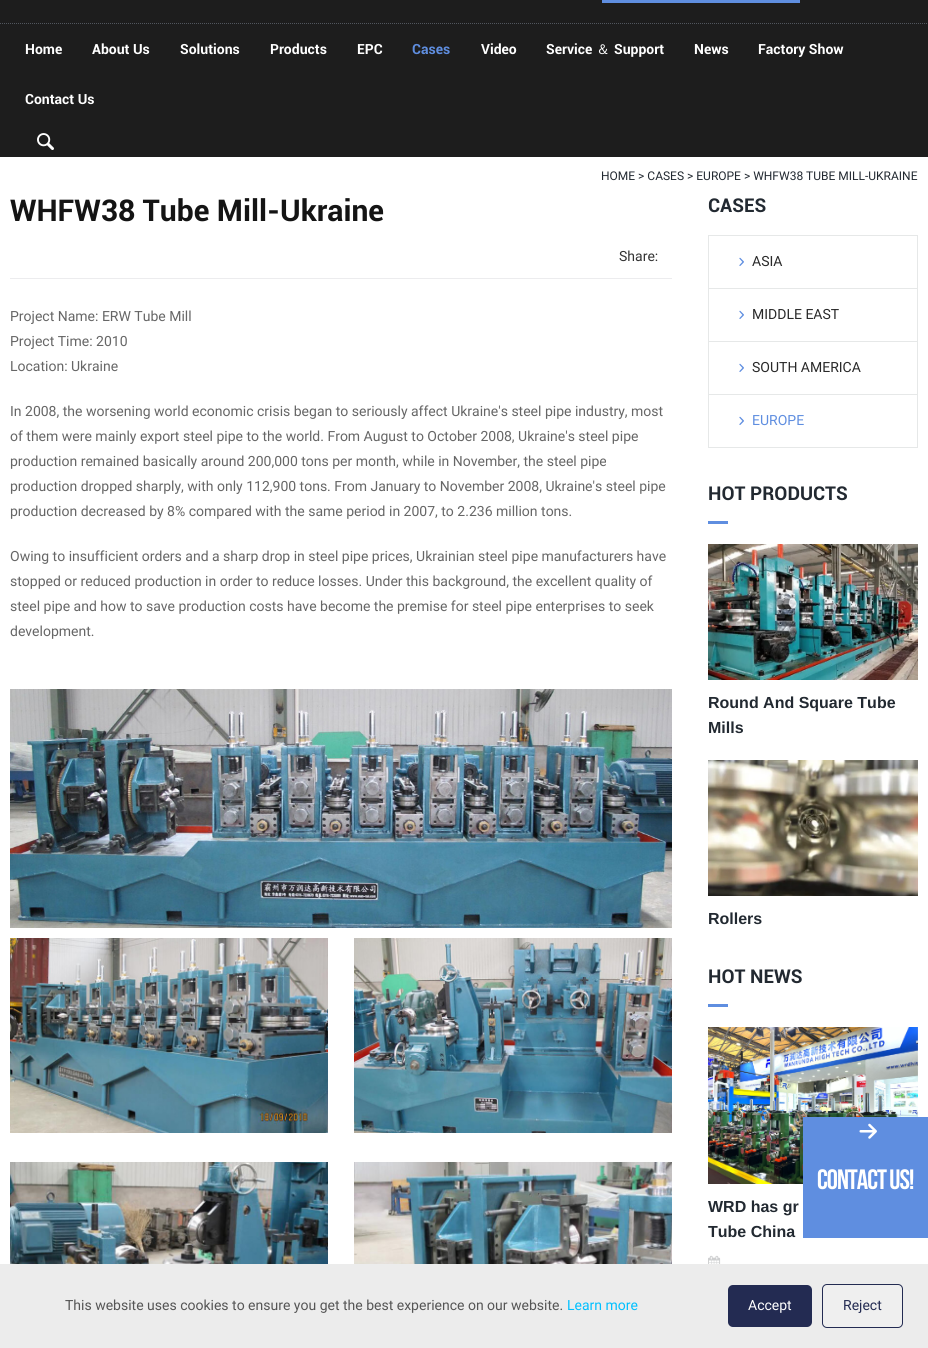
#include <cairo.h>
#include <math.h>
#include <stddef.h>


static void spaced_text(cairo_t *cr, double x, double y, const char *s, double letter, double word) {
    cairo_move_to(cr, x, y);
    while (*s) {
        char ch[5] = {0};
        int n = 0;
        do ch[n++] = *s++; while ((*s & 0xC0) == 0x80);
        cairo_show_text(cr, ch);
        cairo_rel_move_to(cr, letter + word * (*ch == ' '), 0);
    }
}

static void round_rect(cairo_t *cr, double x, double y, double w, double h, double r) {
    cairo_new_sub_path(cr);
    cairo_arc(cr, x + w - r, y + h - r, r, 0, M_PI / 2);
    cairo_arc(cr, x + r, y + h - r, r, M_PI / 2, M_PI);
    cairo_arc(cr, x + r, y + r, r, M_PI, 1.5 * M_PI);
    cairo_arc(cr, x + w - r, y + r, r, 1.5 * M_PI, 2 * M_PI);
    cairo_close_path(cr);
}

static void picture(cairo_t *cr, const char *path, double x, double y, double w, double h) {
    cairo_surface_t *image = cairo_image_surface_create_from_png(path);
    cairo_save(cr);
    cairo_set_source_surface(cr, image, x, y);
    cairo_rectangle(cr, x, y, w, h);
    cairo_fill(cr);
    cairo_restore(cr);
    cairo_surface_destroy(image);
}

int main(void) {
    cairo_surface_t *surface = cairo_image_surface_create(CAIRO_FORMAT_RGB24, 928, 1348);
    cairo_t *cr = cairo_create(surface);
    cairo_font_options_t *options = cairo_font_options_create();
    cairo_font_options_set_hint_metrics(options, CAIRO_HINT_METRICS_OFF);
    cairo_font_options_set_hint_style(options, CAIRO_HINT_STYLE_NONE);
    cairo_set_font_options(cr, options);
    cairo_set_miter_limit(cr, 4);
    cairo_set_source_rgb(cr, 1, 1, 1);
    cairo_paint(cr);
    cairo_set_source_rgb(cr, 0.114, 0.114, 0.114);
    cairo_rectangle(cr, 0, 0, 928, 157);
    cairo_fill(cr);
    cairo_set_source_rgb(cr, 0.373, 0.557, 0.878);
    cairo_rectangle(cr, 602, 0, 198, 3);
    cairo_fill(cr);
    cairo_new_path(cr);
    cairo_move_to(cr, 0, 23.5);
    cairo_line_to(cr, 928, 23.5);
    cairo_set_source_rgb(cr, 0.318, 0.337, 0.369);
    cairo_set_line_width(cr, 1);
    cairo_set_dash(cr, (double[]){1, 1}, 2, 0);
    cairo_stroke(cr);
    cairo_select_font_face(cr, "Roboto", CAIRO_FONT_SLANT_NORMAL, CAIRO_FONT_WEIGHT_BOLD);
    cairo_set_font_size(cr, 14);
    cairo_set_source_rgb(cr, 1, 1, 1);
    cairo_move_to(cr, 25, 54);
    cairo_show_text(cr, "Home");
    cairo_move_to(cr, 92, 54);
    cairo_show_text(cr, "About Us");
    cairo_move_to(cr, 180, 54);
    cairo_show_text(cr, "Solutions");
    cairo_move_to(cr, 270, 54);
    cairo_show_text(cr, "Products");
    cairo_move_to(cr, 357, 54);
    cairo_show_text(cr, "EPC");
    cairo_set_source_rgb(cr, 0.373, 0.557, 0.878);
    cairo_move_to(cr, 412, 54);
    cairo_show_text(cr, "Cases");
    cairo_set_source_rgb(cr, 1, 1, 1);
    cairo_move_to(cr, 481, 54);
    cairo_show_text(cr, "Video");
    cairo_move_to(cr, 546, 54);
    cairo_show_text(cr, "Service");
    cairo_select_font_face(cr, "WenQuanYi Zen Hei Medium", CAIRO_FONT_SLANT_NORMAL, CAIRO_FONT_WEIGHT_NORMAL);
    cairo_move_to(cr, 596, 54);
    cairo_show_text(cr, "＆");
    cairo_select_font_face(cr, "Roboto", CAIRO_FONT_SLANT_NORMAL, CAIRO_FONT_WEIGHT_BOLD);
    cairo_move_to(cr, 614, 54);
    cairo_show_text(cr, "Support");
    cairo_move_to(cr, 694, 54);
    cairo_show_text(cr, "News");
    cairo_move_to(cr, 758, 54);
    cairo_show_text(cr, "Factory Show");
    cairo_move_to(cr, 25, 104);
    cairo_show_text(cr, "Contact Us");
    picture(cr, "img1.png", 37, 133, 17, 17);
    cairo_select_font_face(cr, "Roboto", CAIRO_FONT_SLANT_NORMAL, CAIRO_FONT_WEIGHT_NORMAL);
    cairo_set_font_size(cr, 12);
    cairo_set_source_rgb(cr, 0.133, 0.161, 0.192);
    cairo_move_to(cr, 601, 180);
    cairo_show_text(cr, "HOME > CASES > EUROPE > WHFW38 TUBE MILL-UKRAINE");
    cairo_select_font_face(cr, "Roboto", CAIRO_FONT_SLANT_NORMAL, CAIRO_FONT_WEIGHT_BOLD);
    cairo_set_font_size(cr, 30);
    cairo_set_source_rgb(cr, 0.082, 0.082, 0.082);
    cairo_move_to(cr, 10, 221);
    cairo_show_text(cr, "WHFW38 Tube Mill-Ukraine");
    cairo_set_source_rgb(cr, 0.925, 0.925, 0.933);
    cairo_rectangle(cr, 10, 278, 662, 1);
    cairo_fill(cr);
    cairo_select_font_face(cr, "Roboto", CAIRO_FONT_SLANT_NORMAL, CAIRO_FONT_WEIGHT_NORMAL);
    cairo_set_font_size(cr, 14);
    cairo_set_source_rgb(cr, 0.2, 0.2, 0.2);
    cairo_move_to(cr, 619, 261);
    cairo_show_text(cr, "Share:");
    cairo_set_source_rgb(cr, 0.4, 0.4, 0.4);
    cairo_move_to(cr, 10, 321);
    cairo_show_text(cr, "Project Name: ERW Tube Mill");
    cairo_move_to(cr, 10, 346);
    cairo_show_text(cr, "Project Time: 2010");
    cairo_move_to(cr, 10, 371);
    cairo_show_text(cr, "Location: Ukraine");
    cairo_move_to(cr, 10, 416);
    cairo_show_text(cr, "In 2008, the worsening world economic crisis began to seriously affect Ukraine's steel pipe industry, most");
    cairo_move_to(cr, 10, 441);
    cairo_show_text(cr, "of them were mainly export steel pipe to the world. From August to October 2008, Ukraine's steel pipe");
    cairo_move_to(cr, 10, 466);
    cairo_show_text(cr, "production remained basically around 200,000 tons per month, while in November, the steel pipe");
    cairo_move_to(cr, 10, 491);
    cairo_show_text(cr, "production dropped sharply, with only 112,900 tons. From January to November 2008, Ukraine's steel pipe");
    cairo_move_to(cr, 10, 516);
    cairo_show_text(cr, "production decreased by 8% compared with the same period in 2007, to 2.236 million tons.");
    cairo_move_to(cr, 10, 561);
    cairo_show_text(cr, "Owing to insufficient orders and a sharp drop in steel pipe prices, Ukrainian steel pipe manufacturers have");
    cairo_move_to(cr, 10, 586);
    cairo_show_text(cr, "stopped or reduced production in order to reduce losses. Under this background, the excellent quality of");
    cairo_move_to(cr, 10, 611);
    cairo_show_text(cr, "steel pipe and how to save production costs have become the premise for steel pipe enterprises to seek");
    cairo_move_to(cr, 10, 636);
    cairo_show_text(cr, "development.");
    picture(cr, "img2.png", 10, 689, 662, 239);
    picture(cr, "img3.png", 10, 938, 318, 195);
    picture(cr, "img4.png", 354, 938, 318, 195);
    picture(cr, "img5.png", 10, 1162, 318, 102);
    picture(cr, "img6.png", 354, 1162, 318, 102);
    cairo_select_font_face(cr, "Roboto", CAIRO_FONT_SLANT_NORMAL, CAIRO_FONT_WEIGHT_BOLD);
    cairo_set_font_size(cr, 19);
    cairo_set_source_rgb(cr, 0.133, 0.161, 0.192);
    cairo_move_to(cr, 708, 212);
    cairo_show_text(cr, "CASES");
    cairo_set_source_rgb(cr, 0.902, 0.91, 0.91);
    cairo_rectangle(cr, 708, 235, 210, 1);
    cairo_fill(cr);
    cairo_rectangle(cr, 917, 235, 1, 213);
    cairo_fill(cr);
    cairo_rectangle(cr, 708, 235, 1, 213);
    cairo_fill(cr);
    cairo_rectangle(cr, 709, 288, 208, 1);
    cairo_fill(cr);
    picture(cr, "img7.png", 739, 257, 5, 9);
    cairo_select_font_face(cr, "Roboto", CAIRO_FONT_SLANT_NORMAL, CAIRO_FONT_WEIGHT_NORMAL);
    cairo_set_font_size(cr, 14);
    cairo_set_source_rgb(cr, 0.161, 0.161, 0.161);
    cairo_move_to(cr, 752, 266);
    cairo_show_text(cr, "ASIA");
    cairo_set_source_rgb(cr, 0.902, 0.91, 0.91);
    cairo_rectangle(cr, 709, 341, 208, 1);
    cairo_fill(cr);
    picture(cr, "img7.png", 739, 310, 5, 9);
    cairo_set_source_rgb(cr, 0.161, 0.161, 0.161);
    cairo_move_to(cr, 752, 319);
    cairo_show_text(cr, "MIDDLE EAST");
    cairo_set_source_rgb(cr, 0.902, 0.91, 0.91);
    cairo_rectangle(cr, 709, 394, 208, 1);
    cairo_fill(cr);
    picture(cr, "img7.png", 739, 363, 5, 9);
    cairo_set_source_rgb(cr, 0.161, 0.161, 0.161);
    cairo_move_to(cr, 752, 372);
    cairo_show_text(cr, "SOUTH AMERICA");
    cairo_set_source_rgb(cr, 0.902, 0.91, 0.91);
    cairo_rectangle(cr, 709, 447, 208, 1);
    cairo_fill(cr);
    picture(cr, "img7.png", 739, 416, 5, 9);
    cairo_set_source_rgb(cr, 0.373, 0.557, 0.878);
    cairo_move_to(cr, 752, 425);
    cairo_show_text(cr, "EUROPE");
    cairo_select_font_face(cr, "Roboto", CAIRO_FONT_SLANT_NORMAL, CAIRO_FONT_WEIGHT_BOLD);
    cairo_set_font_size(cr, 19);
    cairo_set_source_rgb(cr, 0.133, 0.161, 0.192);
    cairo_move_to(cr, 708, 500);
    cairo_show_text(cr, "HOT PRODUCTS");
    cairo_set_source_rgb(cr, 0.373, 0.557, 0.878);
    cairo_rectangle(cr, 708, 521, 20, 3);
    cairo_fill(cr);
    picture(cr, "img8.png", 708, 544, 210, 136);
    cairo_select_font_face(cr, "Liberation Sans", CAIRO_FONT_SLANT_NORMAL, CAIRO_FONT_WEIGHT_BOLD);
    cairo_set_font_size(cr, 16);
    cairo_set_source_rgb(cr, 0.133, 0.161, 0.192);
    cairo_move_to(cr, 708, 708);
    cairo_show_text(cr, "Round And Square Tube");
    cairo_move_to(cr, 708, 733);
    cairo_show_text(cr, "Mills");
    picture(cr, "img9.png", 708, 760, 210, 136);
    cairo_move_to(cr, 708, 924);
    cairo_show_text(cr, "Rollers");
    cairo_select_font_face(cr, "Roboto", CAIRO_FONT_SLANT_NORMAL, CAIRO_FONT_WEIGHT_BOLD);
    cairo_set_font_size(cr, 19);
    cairo_move_to(cr, 708, 983);
    cairo_show_text(cr, "HOT NEWS");
    cairo_set_source_rgb(cr, 0.373, 0.557, 0.878);
    cairo_rectangle(cr, 708, 1004, 20, 3);
    cairo_fill(cr);
    picture(cr, "img10.png", 708, 1027, 210, 157);
    cairo_select_font_face(cr, "Liberation Sans", CAIRO_FONT_SLANT_NORMAL, CAIRO_FONT_WEIGHT_BOLD);
    cairo_set_font_size(cr, 16);
    cairo_set_source_rgb(cr, 0.133, 0.161, 0.192);
    cairo_move_to(cr, 708, 1212);
    cairo_show_text(cr, "WRD has gr");
    cairo_move_to(cr, 708, 1237);
    cairo_show_text(cr, "Tube China");
    picture(cr, "img11.png", 708, 1255, 13, 9);
    cairo_set_source_rgb(cr, 0.373, 0.557, 0.878);
    cairo_rectangle(cr, 803, 1117, 125, 121);
    cairo_fill(cr);
    picture(cr, "img12.png", 859, 1123, 18, 16);
    cairo_select_font_face(cr, "Bebas Neue", CAIRO_FONT_SLANT_NORMAL, CAIRO_FONT_WEIGHT_NORMAL);
    cairo_set_font_size(cr, 28);
    cairo_set_source_rgb(cr, 1, 1, 1);
    spaced_text(cr, 817, 1189, "Contact Us!", -1, 0);
    cairo_set_source_rgb(cr, 0.922, 0.922, 0.922);
    cairo_rectangle(cr, 0, 1264, 928, 84);
    cairo_fill(cr);
    cairo_select_font_face(cr, "Roboto", CAIRO_FONT_SLANT_NORMAL, CAIRO_FONT_WEIGHT_NORMAL);
    cairo_set_font_size(cr, 14);
    cairo_set_source_rgb(cr, 0.333, 0.333, 0.333);
    cairo_move_to(cr, 65, 1310);
    cairo_show_text(cr, "This website uses cookies to ensure you get the best experience on our website.");
    cairo_set_source_rgb(cr, 0, 0.753, 1);
    cairo_move_to(cr, 567, 1310);
    cairo_show_text(cr, "Learn more");
    cairo_set_source_rgb(cr, 0.137, 0.169, 0.322);
    round_rect(cr, 728, 1285, 84, 42, 5);
    cairo_fill(cr);
    cairo_set_source_rgb(cr, 1, 1, 1);
    cairo_move_to(cr, 748, 1310);
    cairo_show_text(cr, "Accept");
    cairo_set_source_rgb(cr, 0.937, 0.937, 0.937);
    round_rect(cr, 822.5, 1284.5, 80, 43, 4.5);
    cairo_fill_preserve(cr);
    cairo_set_source_rgb(cr, 0.137, 0.169, 0.322);
    cairo_set_dash(cr, NULL, 0, 0);
    cairo_stroke(cr);
    cairo_move_to(cr, 843, 1310);
    cairo_show_text(cr, "Reject");
    cairo_surface_write_to_png(surface, "page.png");
    cairo_font_options_destroy(options);
    cairo_destroy(cr);
    cairo_surface_destroy(surface);
    return 0;
}
